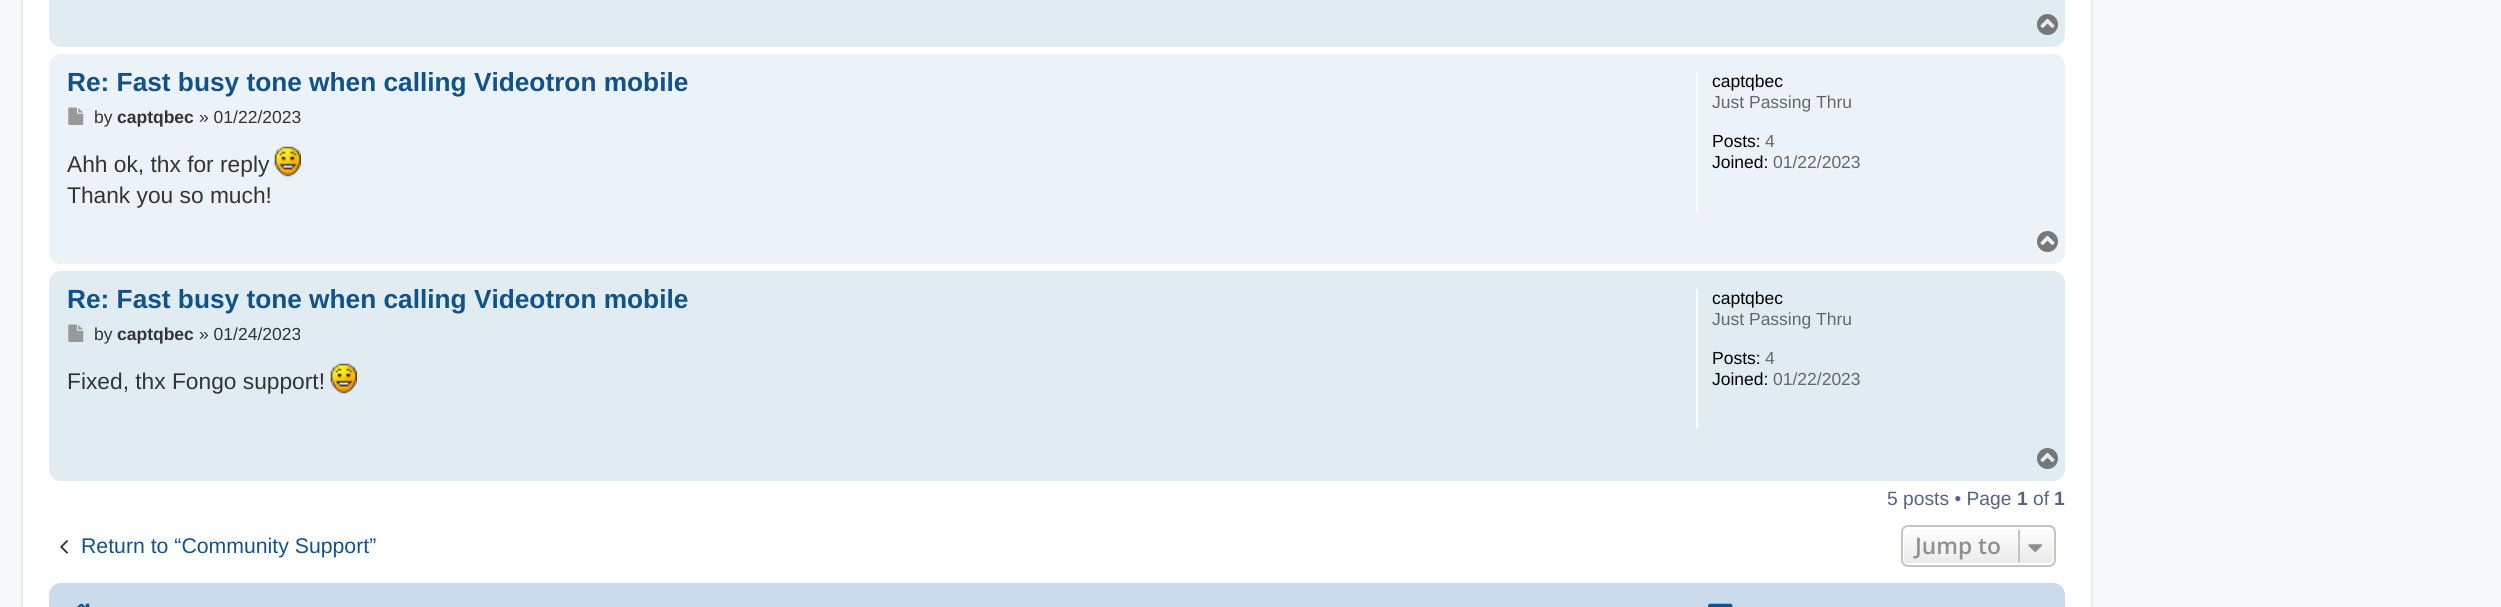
#include <cairo.h>
#include <math.h>
#include <stddef.h>


static void round_rect(cairo_t *cr, double x, double y, double w, double h, double r) {
    cairo_new_sub_path(cr);
    cairo_arc(cr, x + w - r, y + h - r, r, 0, M_PI / 2);
    cairo_arc(cr, x + r, y + h - r, r, M_PI / 2, M_PI);
    cairo_arc(cr, x + r, y + r, r, M_PI, 1.5 * M_PI);
    cairo_arc(cr, x + w - r, y + r, r, 1.5 * M_PI, 2 * M_PI);
    cairo_close_path(cr);
}

static void picture(cairo_t *cr, const char *path, double x, double y, double w, double h) {
    cairo_surface_t *image = cairo_image_surface_create_from_png(path);
    cairo_save(cr);
    cairo_set_source_surface(cr, image, x, y);
    cairo_rectangle(cr, x, y, w, h);
    cairo_fill(cr);
    cairo_restore(cr);
    cairo_surface_destroy(image);
}

int main(void) {
    cairo_surface_t *surface = cairo_image_surface_create(CAIRO_FORMAT_RGB24, 2501, 607);
    cairo_t *cr = cairo_create(surface);
    cairo_font_options_t *options = cairo_font_options_create();
    cairo_font_options_set_hint_metrics(options, CAIRO_HINT_METRICS_OFF);
    cairo_font_options_set_hint_style(options, CAIRO_HINT_STYLE_NONE);
    cairo_set_font_options(cr, options);
    cairo_set_miter_limit(cr, 4);
    cairo_pattern_t *gradient;
    cairo_set_source_rgb(cr, 0.961, 0.969, 0.98);
    cairo_paint(cr);
    cairo_set_source_rgb(cr, 1, 1, 1);
    cairo_rectangle(cr, 22, -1, 2070, 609);
    cairo_fill_preserve(cr);
    cairo_set_source_rgb(cr, 0.902, 0.914, 0.929);
    cairo_stroke(cr);
    cairo_set_source_rgb(cr, 0.882, 0.922, 0.949);
    round_rect(cr, 49, -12, 2016, 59, 12);
    cairo_fill(cr);
    picture(cr, "img1.png", 2037, 14, 21, 21);
    cairo_set_source_rgb(cr, 0.925, 0.953, 0.969);
    round_rect(cr, 49, 54, 2016, 210, 12);
    cairo_fill(cr);
    cairo_select_font_face(cr, "Liberation Sans", CAIRO_FONT_SLANT_NORMAL, CAIRO_FONT_WEIGHT_BOLD);
    cairo_set_font_size(cr, 26.25);
    cairo_set_source_rgb(cr, 0.063, 0.322, 0.537);
    cairo_move_to(cr, 67, 91);
    cairo_show_text(cr, "Re: Fast busy tone when calling Videotron mobile");
    picture(cr, "img2.png", 68, 107, 16, 18);
    cairo_select_font_face(cr, "Liberation Sans", CAIRO_FONT_SLANT_NORMAL, CAIRO_FONT_WEIGHT_NORMAL);
    cairo_set_font_size(cr, 17.5);
    cairo_set_source_rgb(cr, 0.2, 0.2, 0.2);
    cairo_move_to(cr, 94, 123);
    cairo_show_text(cr, "by");
    cairo_select_font_face(cr, "Liberation Sans", CAIRO_FONT_SLANT_NORMAL, CAIRO_FONT_WEIGHT_BOLD);
    cairo_move_to(cr, 117, 123);
    cairo_show_text(cr, "captqbec");
    cairo_select_font_face(cr, "Liberation Sans", CAIRO_FONT_SLANT_NORMAL, CAIRO_FONT_WEIGHT_NORMAL);
    cairo_move_to(cr, 199, 123);
    cairo_show_text(cr, "» 01/22/2023");
    cairo_set_font_size(cr, 22.75);
    cairo_move_to(cr, 67, 172);
    cairo_show_text(cr, "Ahh ok, thx for reply");
    picture(cr, "img3.png", 274, 146, 27, 31);
    cairo_move_to(cr, 67, 203);
    cairo_show_text(cr, "Thank you so much!");
    cairo_set_source_rgb(cr, 1, 1, 1);
    cairo_rectangle(cr, 1696, 72, 2, 140);
    cairo_fill(cr);
    cairo_set_font_size(cr, 17.5);
    cairo_set_source_rgb(cr, 0, 0, 0);
    cairo_move_to(cr, 1712, 87);
    cairo_show_text(cr, "captqbec");
    cairo_set_source_rgb(cr, 0.4, 0.4, 0.4);
    cairo_move_to(cr, 1712, 108);
    cairo_show_text(cr, "Just Passing Thru");
    cairo_set_source_rgb(cr, 0, 0, 0);
    cairo_move_to(cr, 1712, 147);
    cairo_show_text(cr, "Posts:");
    cairo_set_source_rgb(cr, 0.4, 0.4, 0.4);
    cairo_move_to(cr, 1765, 147);
    cairo_show_text(cr, "4");
    cairo_set_source_rgb(cr, 0, 0, 0);
    cairo_move_to(cr, 1712, 168);
    cairo_show_text(cr, "Joined:");
    cairo_set_source_rgb(cr, 0.4, 0.4, 0.4);
    cairo_move_to(cr, 1773, 168);
    cairo_show_text(cr, "01/22/2023");
    picture(cr, "img4.png", 2037, 231, 21, 21);
    cairo_set_source_rgb(cr, 0.882, 0.922, 0.949);
    round_rect(cr, 49, 271, 2016, 210, 12);
    cairo_fill(cr);
    cairo_select_font_face(cr, "Liberation Sans", CAIRO_FONT_SLANT_NORMAL, CAIRO_FONT_WEIGHT_BOLD);
    cairo_set_font_size(cr, 26.25);
    cairo_set_source_rgb(cr, 0.063, 0.322, 0.537);
    cairo_move_to(cr, 67, 308);
    cairo_show_text(cr, "Re: Fast busy tone when calling Videotron mobile");
    picture(cr, "img5.png", 68, 324, 16, 18);
    cairo_select_font_face(cr, "Liberation Sans", CAIRO_FONT_SLANT_NORMAL, CAIRO_FONT_WEIGHT_NORMAL);
    cairo_set_font_size(cr, 17.5);
    cairo_set_source_rgb(cr, 0.2, 0.2, 0.2);
    cairo_move_to(cr, 94, 340);
    cairo_show_text(cr, "by");
    cairo_select_font_face(cr, "Liberation Sans", CAIRO_FONT_SLANT_NORMAL, CAIRO_FONT_WEIGHT_BOLD);
    cairo_move_to(cr, 117, 340);
    cairo_show_text(cr, "captqbec");
    cairo_select_font_face(cr, "Liberation Sans", CAIRO_FONT_SLANT_NORMAL, CAIRO_FONT_WEIGHT_NORMAL);
    cairo_move_to(cr, 199, 340);
    cairo_show_text(cr, "» 01/24/2023");
    cairo_set_font_size(cr, 22.75);
    cairo_move_to(cr, 67, 389);
    cairo_show_text(cr, "Fixed, thx Fongo support!");
    picture(cr, "img6.png", 330, 363, 27, 31);
    cairo_set_source_rgb(cr, 1, 1, 1);
    cairo_rectangle(cr, 1696, 289, 2, 140);
    cairo_fill(cr);
    cairo_set_font_size(cr, 17.5);
    cairo_set_source_rgb(cr, 0, 0, 0);
    cairo_move_to(cr, 1712, 304);
    cairo_show_text(cr, "captqbec");
    cairo_set_source_rgb(cr, 0.4, 0.4, 0.4);
    cairo_move_to(cr, 1712, 325);
    cairo_show_text(cr, "Just Passing Thru");
    cairo_set_source_rgb(cr, 0, 0, 0);
    cairo_move_to(cr, 1712, 364);
    cairo_show_text(cr, "Posts:");
    cairo_set_source_rgb(cr, 0.4, 0.4, 0.4);
    cairo_move_to(cr, 1765, 364);
    cairo_show_text(cr, "4");
    cairo_set_source_rgb(cr, 0, 0, 0);
    cairo_move_to(cr, 1712, 385);
    cairo_show_text(cr, "Joined:");
    cairo_set_source_rgb(cr, 0.4, 0.4, 0.4);
    cairo_move_to(cr, 1773, 385);
    cairo_show_text(cr, "01/22/2023");
    picture(cr, "img1.png", 2037, 448, 21, 21);
    cairo_set_font_size(cr, 19.25);
    cairo_set_source_rgb(cr, 0.325, 0.392, 0.51);
    cairo_move_to(cr, 1887, 505);
    cairo_show_text(cr, "5 posts • Page");
    cairo_select_font_face(cr, "Liberation Sans", CAIRO_FONT_SLANT_NORMAL, CAIRO_FONT_WEIGHT_BOLD);
    cairo_move_to(cr, 2017, 505);
    cairo_show_text(cr, "1");
    cairo_select_font_face(cr, "Liberation Sans", CAIRO_FONT_SLANT_NORMAL, CAIRO_FONT_WEIGHT_NORMAL);
    cairo_move_to(cr, 2033, 505);
    cairo_show_text(cr, "of");
    cairo_select_font_face(cr, "Liberation Sans", CAIRO_FONT_SLANT_NORMAL, CAIRO_FONT_WEIGHT_BOLD);
    cairo_move_to(cr, 2054, 505);
    cairo_show_text(cr, "1");
    picture(cr, "img7.png", 60, 540, 8, 14);
    cairo_select_font_face(cr, "Liberation Sans", CAIRO_FONT_SLANT_NORMAL, CAIRO_FONT_WEIGHT_NORMAL);
    cairo_set_font_size(cr, 21.25);
    cairo_set_source_rgb(cr, 0.063, 0.322, 0.537);
    cairo_move_to(cr, 81, 553);
    cairo_show_text(cr, "Return to “Community Support”");
    cairo_save(cr);
    round_rect(cr, 1901, 525, 155, 42, 7);
    cairo_clip(cr);
    gradient = cairo_pattern_create_linear(1978, 527, 1978, 565);
    cairo_pattern_add_color_stop_rgba(gradient, 0, 1, 1, 1, 1);
    cairo_pattern_add_color_stop_rgba(gradient, 1, 0.914, 0.914, 0.914, 1);
    cairo_set_source(cr, gradient);
    cairo_pattern_destroy(gradient);
    cairo_rectangle(cr, 1901, 527, 155, 38);
    cairo_fill(cr);
    cairo_restore(cr);
    round_rect(cr, 1903, 528, 151, 36, 4);
    cairo_set_source_rgb(cr, 1, 1, 1);
    cairo_stroke(cr);
    round_rect(cr, 1902, 526, 153, 40, 6);
    cairo_set_source_rgb(cr, 0.78, 0.765, 0.749);
    cairo_stroke(cr);
    cairo_select_font_face(cr, "Open Sans SemiBold", CAIRO_FONT_SLANT_NORMAL, CAIRO_FONT_WEIGHT_NORMAL);
    cairo_set_font_size(cr, 22.75);
    cairo_set_source_rgb(cr, 0.561, 0.561, 0.561);
    cairo_move_to(cr, 1915, 554);
    cairo_show_text(cr, "Jump to");
    cairo_set_source_rgb(cr, 0.78, 0.765, 0.749);
    cairo_rectangle(cr, 2018, 530, 2, 32);
    cairo_fill(cr);
    picture(cr, "img8.png", 2028, 544, 15, 8);
    cairo_set_source_rgb(cr, 0.792, 0.863, 0.922);
    round_rect(cr, 49, 583, 2016, 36, 12);
    cairo_fill(cr);
    picture(cr, "img9.png", 77, 603, 13, 4);
    picture(cr, "img10.png", 1708, 603, 25, 4);
    cairo_surface_write_to_png(surface, "page.png");
    cairo_font_options_destroy(options);
    cairo_destroy(cr);
    cairo_surface_destroy(surface);
    return 0;
}
